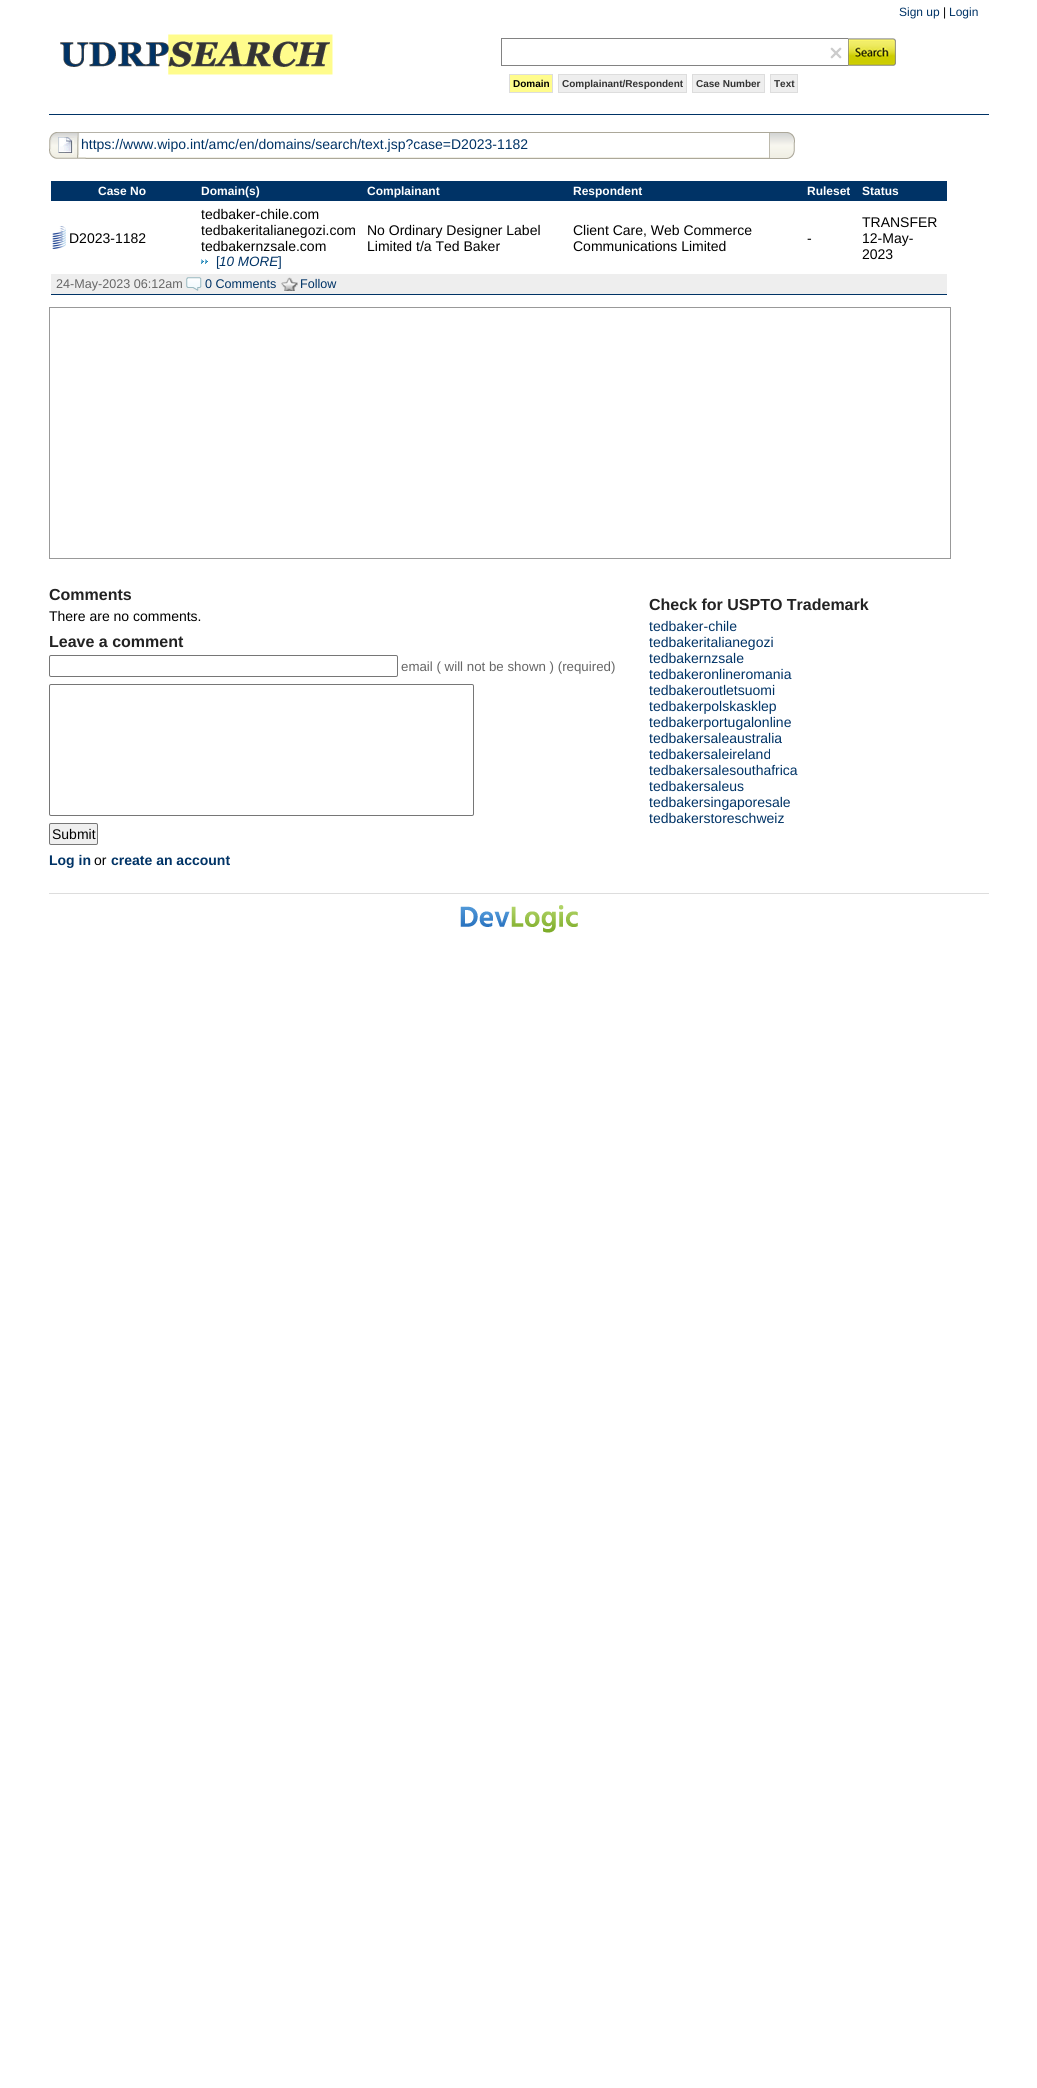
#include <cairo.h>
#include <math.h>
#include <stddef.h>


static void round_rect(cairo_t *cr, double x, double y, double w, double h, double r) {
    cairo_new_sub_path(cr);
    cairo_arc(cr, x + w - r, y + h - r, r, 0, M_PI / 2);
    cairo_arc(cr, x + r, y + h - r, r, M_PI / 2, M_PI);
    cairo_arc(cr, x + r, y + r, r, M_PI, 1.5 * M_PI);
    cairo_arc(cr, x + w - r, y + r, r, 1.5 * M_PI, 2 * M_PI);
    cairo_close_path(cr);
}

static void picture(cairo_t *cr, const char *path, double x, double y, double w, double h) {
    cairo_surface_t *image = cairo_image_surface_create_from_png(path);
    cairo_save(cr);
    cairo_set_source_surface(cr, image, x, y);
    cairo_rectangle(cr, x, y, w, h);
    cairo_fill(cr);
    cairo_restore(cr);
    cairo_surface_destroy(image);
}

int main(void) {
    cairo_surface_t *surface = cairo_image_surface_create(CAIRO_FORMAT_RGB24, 1037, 2088);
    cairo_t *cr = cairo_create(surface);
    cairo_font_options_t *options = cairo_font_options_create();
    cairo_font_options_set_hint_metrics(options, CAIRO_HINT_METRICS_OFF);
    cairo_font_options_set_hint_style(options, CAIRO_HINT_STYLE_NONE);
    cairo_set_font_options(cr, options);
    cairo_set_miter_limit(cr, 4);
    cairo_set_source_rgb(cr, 1, 1, 1);
    cairo_paint(cr);
    cairo_select_font_face(cr, "Liberation Sans", CAIRO_FONT_SLANT_NORMAL, CAIRO_FONT_WEIGHT_NORMAL);
    cairo_set_font_size(cr, 12);
    cairo_set_source_rgb(cr, 0, 0.2, 0.4);
    cairo_move_to(cr, 899, 16);
    cairo_show_text(cr, "Sign up");
    cairo_set_source_rgb(cr, 0, 0, 0);
    cairo_move_to(cr, 943, 16);
    cairo_show_text(cr, "|");
    cairo_set_source_rgb(cr, 0, 0.2, 0.4);
    cairo_move_to(cr, 949, 16);
    cairo_show_text(cr, "Login");
    cairo_rectangle(cr, 49, 114, 940, 1);
    cairo_fill(cr);
    picture(cr, "img1.png", 60, 34, 273, 41);
    cairo_set_source_rgb(cr, 0.51, 0.51, 0.51);
    cairo_rectangle(cr, 501, 38, 347, 1);
    cairo_fill(cr);
    cairo_rectangle(cr, 501, 65, 347, 1);
    cairo_fill(cr);
    cairo_rectangle(cr, 501, 38, 1, 28);
    cairo_fill(cr);
    picture(cr, "img2.png", 830, 47, 12, 12);
    picture(cr, "img3.png", 848, 38, 48, 28);
    cairo_set_source_rgb(cr, 1, 0.988, 0.549);
    cairo_rectangle(cr, 509.5, 74.5, 43, 18);
    cairo_fill_preserve(cr);
    cairo_set_source_rgb(cr, 0.867, 0.867, 0.867);
    cairo_set_line_width(cr, 1);
    cairo_stroke(cr);
    cairo_select_font_face(cr, "Liberation Sans", CAIRO_FONT_SLANT_NORMAL, CAIRO_FONT_WEIGHT_BOLD);
    cairo_set_font_size(cr, 10);
    cairo_set_source_rgb(cr, 0, 0, 0);
    cairo_move_to(cr, 513, 87);
    cairo_show_text(cr, "Domain");
    cairo_set_source_rgb(cr, 0.933, 0.933, 0.933);
    cairo_rectangle(cr, 558.5, 74.5, 128, 18);
    cairo_fill_preserve(cr);
    cairo_set_source_rgb(cr, 0.867, 0.867, 0.867);
    cairo_stroke(cr);
    cairo_set_source_rgb(cr, 0.2, 0.2, 0.2);
    cairo_move_to(cr, 562, 87);
    cairo_show_text(cr, "Complainant/Respondent");
    cairo_set_source_rgb(cr, 0.933, 0.933, 0.933);
    cairo_rectangle(cr, 692.5, 74.5, 72, 18);
    cairo_fill_preserve(cr);
    cairo_set_source_rgb(cr, 0.867, 0.867, 0.867);
    cairo_stroke(cr);
    cairo_set_source_rgb(cr, 0.2, 0.2, 0.2);
    cairo_move_to(cr, 696, 87);
    cairo_show_text(cr, "Case Number");
    cairo_set_source_rgb(cr, 0.933, 0.933, 0.933);
    cairo_rectangle(cr, 770.5, 74.5, 27, 18);
    cairo_fill_preserve(cr);
    cairo_set_source_rgb(cr, 0.867, 0.867, 0.867);
    cairo_stroke(cr);
    cairo_set_source_rgb(cr, 0.2, 0.2, 0.2);
    cairo_move_to(cr, 774, 87);
    cairo_show_text(cr, "Text");
    picture(cr, "img4.png", 49, 132, 746, 27);
    cairo_select_font_face(cr, "Liberation Sans", CAIRO_FONT_SLANT_NORMAL, CAIRO_FONT_WEIGHT_NORMAL);
    cairo_set_font_size(cr, 14);
    cairo_set_source_rgb(cr, 0, 0.2, 0.4);
    cairo_move_to(cr, 81, 149);
    cairo_show_text(cr, "https://www.wipo.int/amc/en/domains/search/text.jsp?case=D2023-1182");
    cairo_rectangle(cr, 51, 181, 896, 20);
    cairo_fill(cr);
    cairo_select_font_face(cr, "Liberation Sans", CAIRO_FONT_SLANT_NORMAL, CAIRO_FONT_WEIGHT_BOLD);
    cairo_set_font_size(cr, 12);
    cairo_set_source_rgb(cr, 1, 1, 1);
    cairo_move_to(cr, 98, 195);
    cairo_show_text(cr, "Case No");
    cairo_move_to(cr, 201, 195);
    cairo_show_text(cr, "Domain(s)");
    cairo_move_to(cr, 367, 195);
    cairo_show_text(cr, "Complainant");
    cairo_move_to(cr, 573, 195);
    cairo_show_text(cr, "Respondent");
    cairo_move_to(cr, 807, 195);
    cairo_show_text(cr, "Ruleset");
    cairo_move_to(cr, 862, 195);
    cairo_show_text(cr, "Status");
    picture(cr, "img5.png", 52, 226, 14, 23);
    cairo_select_font_face(cr, "Liberation Sans", CAIRO_FONT_SLANT_NORMAL, CAIRO_FONT_WEIGHT_NORMAL);
    cairo_set_font_size(cr, 14);
    cairo_set_source_rgb(cr, 0, 0, 0);
    cairo_move_to(cr, 69, 243);
    cairo_show_text(cr, "D2023-1182");
    cairo_move_to(cr, 201, 219);
    cairo_show_text(cr, "tedbaker-chile.com");
    cairo_move_to(cr, 201, 235);
    cairo_show_text(cr, "tedbakeritalianegozi.com");
    cairo_move_to(cr, 201, 251);
    cairo_show_text(cr, "tedbakernzsale.com");
    picture(cr, "img6.png", 201, 259, 7, 5);
    cairo_set_font_size(cr, 13.5);
    cairo_set_source_rgb(cr, 0, 0.2, 0.4);
    cairo_move_to(cr, 216, 266);
    cairo_show_text(cr, "[");
    cairo_select_font_face(cr, "Liberation Sans", CAIRO_FONT_SLANT_ITALIC, CAIRO_FONT_WEIGHT_NORMAL);
    cairo_move_to(cr, 219, 266);
    cairo_show_text(cr, "10 MORE");
    cairo_select_font_face(cr, "Liberation Sans", CAIRO_FONT_SLANT_NORMAL, CAIRO_FONT_WEIGHT_NORMAL);
    cairo_move_to(cr, 278, 266);
    cairo_show_text(cr, "]");
    cairo_set_font_size(cr, 14);
    cairo_set_source_rgb(cr, 0, 0, 0);
    cairo_move_to(cr, 367, 235);
    cairo_show_text(cr, "No Ordinary Designer Label");
    cairo_move_to(cr, 367, 251);
    cairo_show_text(cr, "Limited t/a Ted Baker");
    cairo_move_to(cr, 573, 235);
    cairo_show_text(cr, "Client Care, Web Commerce");
    cairo_move_to(cr, 573, 251);
    cairo_show_text(cr, "Communications Limited");
    cairo_move_to(cr, 807, 243);
    cairo_show_text(cr, "-");
    cairo_move_to(cr, 862, 227);
    cairo_show_text(cr, "TRANSFER");
    cairo_move_to(cr, 862, 243);
    cairo_show_text(cr, "12-May-");
    cairo_move_to(cr, 862, 259);
    cairo_show_text(cr, "2023");
    cairo_set_source_rgb(cr, 0.933, 0.933, 0.933);
    cairo_rectangle(cr, 51, 274, 896, 20);
    cairo_fill(cr);
    cairo_set_source_rgb(cr, 0, 0.2, 0.4);
    cairo_rectangle(cr, 51, 294, 896, 1);
    cairo_fill(cr);
    cairo_set_font_size(cr, 12.6);
    cairo_set_source_rgb(cr, 0.4, 0.4, 0.4);
    cairo_move_to(cr, 56, 288);
    cairo_show_text(cr, "24-May-2023 06:12am");
    picture(cr, "img7.png", 186, 277, 16, 14);
    cairo_set_source_rgb(cr, 0, 0.2, 0.4);
    cairo_move_to(cr, 205, 288);
    cairo_show_text(cr, "0 Comments");
    picture(cr, "img8.png", 281, 277, 17, 14);
    cairo_move_to(cr, 300, 288);
    cairo_show_text(cr, "Follow");
    cairo_rectangle(cr, 49.5, 307.5, 901, 251);
    cairo_set_source_rgb(cr, 0.6, 0.6, 0.6);
    cairo_stroke(cr);
    cairo_select_font_face(cr, "Liberation Sans", CAIRO_FONT_SLANT_NORMAL, CAIRO_FONT_WEIGHT_BOLD);
    cairo_set_font_size(cr, 16);
    cairo_set_source_rgb(cr, 0.133, 0.133, 0.133);
    cairo_move_to(cr, 49, 600);
    cairo_show_text(cr, "Comments");
    cairo_select_font_face(cr, "Liberation Sans", CAIRO_FONT_SLANT_NORMAL, CAIRO_FONT_WEIGHT_NORMAL);
    cairo_set_font_size(cr, 14);
    cairo_set_source_rgb(cr, 0, 0, 0);
    cairo_move_to(cr, 49, 621);
    cairo_show_text(cr, "There are no comments.");
    cairo_select_font_face(cr, "Liberation Sans", CAIRO_FONT_SLANT_NORMAL, CAIRO_FONT_WEIGHT_BOLD);
    cairo_set_font_size(cr, 16);
    cairo_set_source_rgb(cr, 0.133, 0.133, 0.133);
    cairo_move_to(cr, 49, 647);
    cairo_show_text(cr, "Leave a comment");
    round_rect(cr, 49.5, 655.5, 348, 21, 1.5);
    cairo_set_source_rgb(cr, 0.463, 0.463, 0.463);
    cairo_stroke(cr);
    cairo_select_font_face(cr, "Liberation Sans", CAIRO_FONT_SLANT_NORMAL, CAIRO_FONT_WEIGHT_NORMAL);
    cairo_set_font_size(cr, 13.3);
    cairo_set_source_rgb(cr, 0.4, 0.4, 0.4);
    cairo_move_to(cr, 401, 671);
    cairo_show_text(cr, "email ( will not be shown ) (required)");
    round_rect(cr, 49.5, 684.5, 424, 131, 1.5);
    cairo_set_source_rgb(cr, 0.463, 0.463, 0.463);
    cairo_stroke(cr);
    cairo_set_source_rgb(cr, 0.937, 0.937, 0.937);
    round_rect(cr, 49.5, 823.5, 48, 21, 1.5);
    cairo_fill_preserve(cr);
    cairo_set_source_rgb(cr, 0.463, 0.463, 0.463);
    cairo_stroke(cr);
    cairo_set_font_size(cr, 14);
    cairo_set_source_rgb(cr, 0, 0, 0);
    cairo_move_to(cr, 52, 839);
    cairo_show_text(cr, "Submit");
    cairo_select_font_face(cr, "Liberation Sans", CAIRO_FONT_SLANT_NORMAL, CAIRO_FONT_WEIGHT_BOLD);
    cairo_set_source_rgb(cr, 0, 0.2, 0.4);
    cairo_move_to(cr, 49, 865);
    cairo_show_text(cr, "Log in");
    cairo_select_font_face(cr, "Liberation Sans", CAIRO_FONT_SLANT_NORMAL, CAIRO_FONT_WEIGHT_NORMAL);
    cairo_set_source_rgb(cr, 0, 0, 0);
    cairo_move_to(cr, 94, 865);
    cairo_show_text(cr, "or");
    cairo_select_font_face(cr, "Liberation Sans", CAIRO_FONT_SLANT_NORMAL, CAIRO_FONT_WEIGHT_BOLD);
    cairo_set_source_rgb(cr, 0, 0.2, 0.4);
    cairo_move_to(cr, 111, 865);
    cairo_show_text(cr, "create an account");
    cairo_set_font_size(cr, 16);
    cairo_set_source_rgb(cr, 0.133, 0.133, 0.133);
    cairo_move_to(cr, 649, 610);
    cairo_show_text(cr, "Check for USPTO Trademark");
    cairo_select_font_face(cr, "Liberation Sans", CAIRO_FONT_SLANT_NORMAL, CAIRO_FONT_WEIGHT_NORMAL);
    cairo_set_font_size(cr, 14);
    cairo_set_source_rgb(cr, 0, 0.2, 0.4);
    cairo_move_to(cr, 649, 631);
    cairo_show_text(cr, "tedbaker-chile");
    cairo_move_to(cr, 649, 647);
    cairo_show_text(cr, "tedbakeritalianegozi");
    cairo_move_to(cr, 649, 663);
    cairo_show_text(cr, "tedbakernzsale");
    cairo_move_to(cr, 649, 679);
    cairo_show_text(cr, "tedbakeronlineromania");
    cairo_move_to(cr, 649, 695);
    cairo_show_text(cr, "tedbakeroutletsuomi");
    cairo_move_to(cr, 649, 711);
    cairo_show_text(cr, "tedbakerpolskasklep");
    cairo_move_to(cr, 649, 727);
    cairo_show_text(cr, "tedbakerportugalonline");
    cairo_move_to(cr, 649, 743);
    cairo_show_text(cr, "tedbakersaleaustralia");
    cairo_move_to(cr, 649, 759);
    cairo_show_text(cr, "tedbakersaleireland");
    cairo_move_to(cr, 649, 775);
    cairo_show_text(cr, "tedbakersalesouthafrica");
    cairo_move_to(cr, 649, 791);
    cairo_show_text(cr, "tedbakersaleus");
    cairo_move_to(cr, 649, 807);
    cairo_show_text(cr, "tedbakersingaporesale");
    cairo_move_to(cr, 649, 823);
    cairo_show_text(cr, "tedbakerstoreschweiz");
    cairo_set_source_rgb(cr, 0.867, 0.867, 0.867);
    cairo_rectangle(cr, 49, 893, 940, 1);
    cairo_fill(cr);
    picture(cr, "img9.png", 460, 905, 118, 28);
    cairo_surface_write_to_png(surface, "page.png");
    cairo_font_options_destroy(options);
    cairo_destroy(cr);
    cairo_surface_destroy(surface);
    return 0;
}
